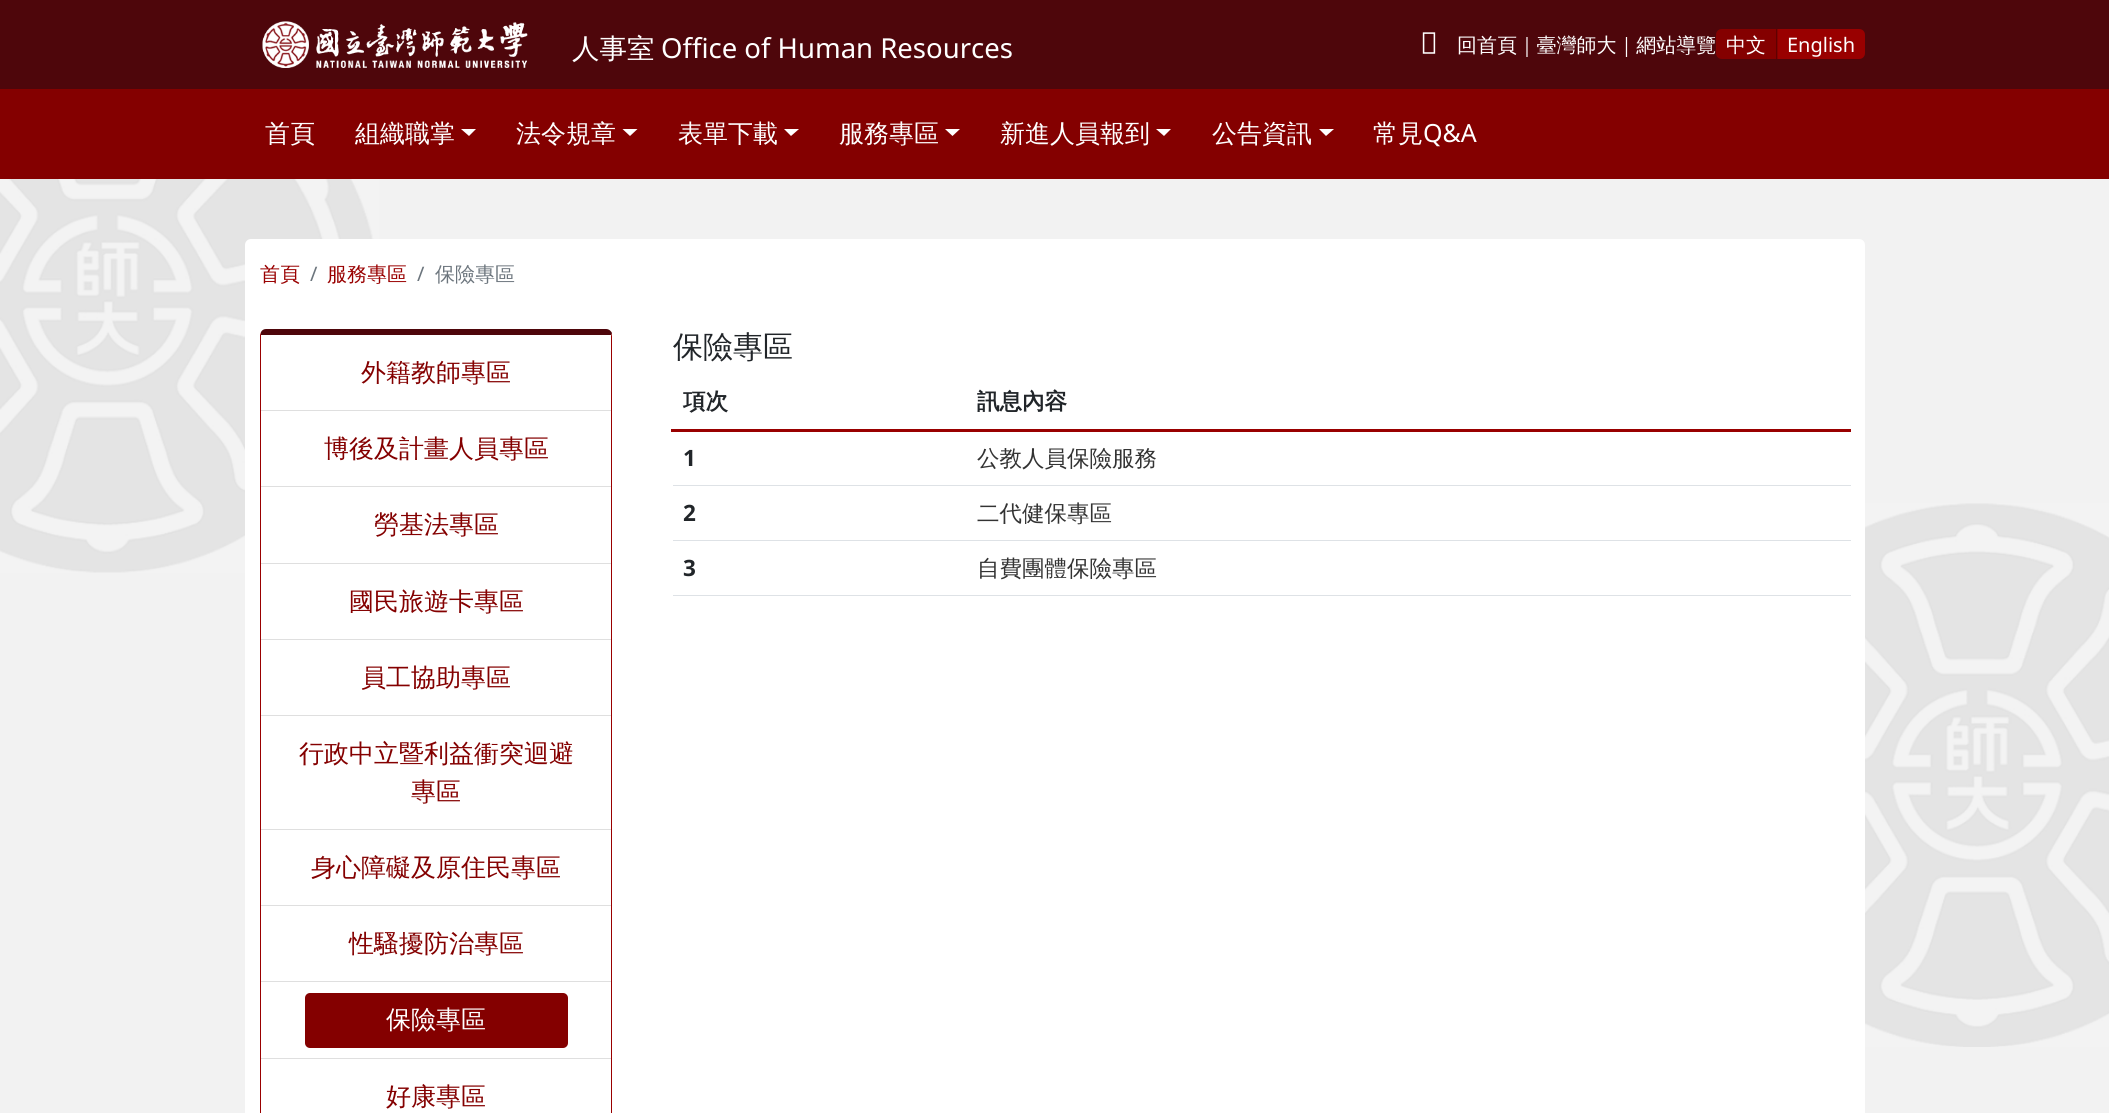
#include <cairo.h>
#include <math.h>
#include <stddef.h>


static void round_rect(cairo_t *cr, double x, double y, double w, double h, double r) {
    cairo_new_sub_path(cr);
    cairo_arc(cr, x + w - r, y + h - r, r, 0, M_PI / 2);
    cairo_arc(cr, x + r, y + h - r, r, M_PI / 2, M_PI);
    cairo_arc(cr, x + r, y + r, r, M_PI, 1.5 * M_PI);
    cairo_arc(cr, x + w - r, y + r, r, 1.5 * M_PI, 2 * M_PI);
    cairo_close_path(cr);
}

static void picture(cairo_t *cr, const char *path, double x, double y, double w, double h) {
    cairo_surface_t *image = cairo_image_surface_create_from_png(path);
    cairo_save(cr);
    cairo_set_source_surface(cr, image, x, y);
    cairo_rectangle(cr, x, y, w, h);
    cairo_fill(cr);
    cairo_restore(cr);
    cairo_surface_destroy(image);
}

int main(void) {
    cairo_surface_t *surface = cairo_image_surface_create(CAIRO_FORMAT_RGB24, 2109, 1113);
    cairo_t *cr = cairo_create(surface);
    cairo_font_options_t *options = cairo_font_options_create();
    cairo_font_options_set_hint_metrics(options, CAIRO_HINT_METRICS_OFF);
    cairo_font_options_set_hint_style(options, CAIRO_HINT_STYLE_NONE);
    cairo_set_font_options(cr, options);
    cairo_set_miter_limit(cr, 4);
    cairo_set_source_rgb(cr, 0.949, 0.949, 0.949);
    cairo_paint(cr);
    picture(cr, "img1.png", 0, 179, 2109, 868);
    cairo_set_source_rgb(cr, 0.306, 0.027, 0.043);
    cairo_rectangle(cr, 0, 0, 2109, 89);
    cairo_fill(cr);
    picture(cr, "img2.png", 262, 21, 266, 47);
    cairo_select_font_face(cr, "WenQuanYi Zen Hei Medium", CAIRO_FONT_SLANT_NORMAL, CAIRO_FONT_WEIGHT_NORMAL);
    cairo_set_font_size(cr, 27.5);
    cairo_set_source_rgb(cr, 1, 1, 1);
    cairo_move_to(cr, 572, 58);
    cairo_show_text(cr, "人事室");
    cairo_select_font_face(cr, "Noto Sans", CAIRO_FONT_SLANT_NORMAL, CAIRO_FONT_WEIGHT_NORMAL);
    cairo_move_to(cr, 661, 58);
    cairo_show_text(cr, "Office of Human Resources");
    picture(cr, "img3.png", 1422, 32, 14, 22);
    cairo_select_font_face(cr, "WenQuanYi Zen Hei Medium", CAIRO_FONT_SLANT_NORMAL, CAIRO_FONT_WEIGHT_NORMAL);
    cairo_set_font_size(cr, 20);
    cairo_move_to(cr, 1457, 52);
    cairo_show_text(cr, "回首頁｜臺灣師大｜網站導覽");
    cairo_set_source_rgb(cr, 0.518, 0, 0);
    cairo_new_path(cr);
    cairo_move_to(cr, 1722, 29);
    cairo_line_to(cr, 1778, 29);
    cairo_line_to(cr, 1778, 59);
    cairo_line_to(cr, 1722, 59);
    cairo_curve_to(cr, 1718.5, 59, 1716, 56.5, 1716, 53);
    cairo_line_to(cr, 1716, 35);
    cairo_curve_to(cr, 1716, 31.5, 1718.5, 29, 1722, 29);
    cairo_close_path(cr);
    cairo_fill(cr);
    cairo_set_source_rgb(cr, 0.376, 0, 0);
    cairo_rectangle(cr, 1776, 29, 1, 30);
    cairo_fill(cr);
    cairo_set_source_rgb(cr, 1, 1, 1);
    cairo_move_to(cr, 1726, 52);
    cairo_show_text(cr, "中文");
    cairo_set_source_rgb(cr, 0.6, 0, 0);
    cairo_new_path(cr);
    cairo_move_to(cr, 1778, 29);
    cairo_line_to(cr, 1859, 29);
    cairo_curve_to(cr, 1862.5, 29, 1865, 31.5, 1865, 35);
    cairo_line_to(cr, 1865, 53);
    cairo_curve_to(cr, 1865, 56.5, 1862.5, 59, 1859, 59);
    cairo_line_to(cr, 1778, 59);
    cairo_close_path(cr);
    cairo_fill(cr);
    cairo_select_font_face(cr, "Noto Sans", CAIRO_FONT_SLANT_NORMAL, CAIRO_FONT_WEIGHT_NORMAL);
    cairo_set_source_rgb(cr, 1, 1, 1);
    cairo_move_to(cr, 1787, 52);
    cairo_show_text(cr, "English");
    cairo_set_source_rgb(cr, 0.518, 0, 0);
    cairo_rectangle(cr, 0, 89, 2109, 90);
    cairo_fill(cr);
    cairo_select_font_face(cr, "WenQuanYi Zen Hei Medium", CAIRO_FONT_SLANT_NORMAL, CAIRO_FONT_WEIGHT_NORMAL);
    cairo_set_font_size(cr, 25);
    cairo_set_source_rgb(cr, 1, 1, 1);
    cairo_move_to(cr, 265, 142);
    cairo_show_text(cr, "首頁");
    cairo_move_to(cr, 355, 142);
    cairo_show_text(cr, "組織職掌");
    cairo_new_path(cr);
    cairo_move_to(cr, 461, 129);
    cairo_line_to(cr, 476, 129);
    cairo_line_to(cr, 469, 136);
    cairo_close_path(cr);
    cairo_fill(cr);
    cairo_move_to(cr, 516, 142);
    cairo_show_text(cr, "法令規章");
    cairo_new_path(cr);
    cairo_move_to(cr, 622.5, 129);
    cairo_line_to(cr, 637.5, 129);
    cairo_line_to(cr, 630, 136);
    cairo_close_path(cr);
    cairo_fill(cr);
    cairo_move_to(cr, 678, 142);
    cairo_show_text(cr, "表單下載");
    cairo_new_path(cr);
    cairo_move_to(cr, 784, 129);
    cairo_line_to(cr, 799, 129);
    cairo_line_to(cr, 791, 136);
    cairo_close_path(cr);
    cairo_fill(cr);
    cairo_move_to(cr, 839, 142);
    cairo_show_text(cr, "服務專區");
    cairo_new_path(cr);
    cairo_move_to(cr, 945, 129);
    cairo_line_to(cr, 960, 129);
    cairo_line_to(cr, 952.5, 136);
    cairo_close_path(cr);
    cairo_fill(cr);
    cairo_move_to(cr, 1000, 142);
    cairo_show_text(cr, "新進人員報到");
    cairo_new_path(cr);
    cairo_move_to(cr, 1156, 129);
    cairo_line_to(cr, 1171, 129);
    cairo_line_to(cr, 1164, 136);
    cairo_close_path(cr);
    cairo_fill(cr);
    cairo_move_to(cr, 1212, 142);
    cairo_show_text(cr, "公告資訊");
    cairo_new_path(cr);
    cairo_move_to(cr, 1319, 129);
    cairo_line_to(cr, 1334, 129);
    cairo_line_to(cr, 1326, 136);
    cairo_close_path(cr);
    cairo_fill(cr);
    cairo_move_to(cr, 1373, 142);
    cairo_show_text(cr, "常見");
    cairo_select_font_face(cr, "Noto Sans", CAIRO_FONT_SLANT_NORMAL, CAIRO_FONT_WEIGHT_NORMAL);
    cairo_move_to(cr, 1423, 142);
    cairo_show_text(cr, "Q&A");
    round_rect(cr, 245, 239, 1620, 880, 6);
    cairo_fill(cr);
    cairo_select_font_face(cr, "WenQuanYi Zen Hei Medium", CAIRO_FONT_SLANT_NORMAL, CAIRO_FONT_WEIGHT_NORMAL);
    cairo_set_font_size(cr, 20);
    cairo_set_source_rgb(cr, 0.6, 0, 0);
    cairo_move_to(cr, 260, 281);
    cairo_show_text(cr, "首頁");
    cairo_select_font_face(cr, "Noto Sans", CAIRO_FONT_SLANT_NORMAL, CAIRO_FONT_WEIGHT_NORMAL);
    cairo_set_source_rgb(cr, 0.424, 0.459, 0.49);
    cairo_move_to(cr, 310, 281);
    cairo_show_text(cr, "/");
    cairo_select_font_face(cr, "WenQuanYi Zen Hei Medium", CAIRO_FONT_SLANT_NORMAL, CAIRO_FONT_WEIGHT_NORMAL);
    cairo_set_source_rgb(cr, 0.6, 0, 0);
    cairo_move_to(cr, 327, 281);
    cairo_show_text(cr, "服務專區");
    cairo_select_font_face(cr, "Noto Sans", CAIRO_FONT_SLANT_NORMAL, CAIRO_FONT_WEIGHT_NORMAL);
    cairo_set_source_rgb(cr, 0.424, 0.459, 0.49);
    cairo_move_to(cr, 417, 281);
    cairo_show_text(cr, "/");
    cairo_select_font_face(cr, "WenQuanYi Zen Hei Medium", CAIRO_FONT_SLANT_NORMAL, CAIRO_FONT_WEIGHT_NORMAL);
    cairo_move_to(cr, 435, 281);
    cairo_show_text(cr, "保險專區");
    cairo_set_source_rgb(cr, 0.306, 0.027, 0.043);
    cairo_new_path(cr);
    cairo_move_to(cr, 266, 329);
    cairo_curve_to(cr, 264, 329, 262, 330, 261, 332);
    cairo_line_to(cr, 261, 335);
    cairo_line_to(cr, 611, 335);
    cairo_line_to(cr, 611, 336);
    cairo_line_to(cr, 612, 333);
    cairo_curve_to(cr, 611, 331, 609, 329, 606, 329);
    cairo_close_path(cr);
    cairo_fill(cr);
    cairo_set_source_rgb(cr, 0.6, 0, 0);
    cairo_new_path(cr);
    cairo_move_to(cr, 612, 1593);
    cairo_line_to(cr, 612, 333);
    cairo_line_to(cr, 611, 336);
    cairo_line_to(cr, 611, 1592);
    cairo_close_path(cr);
    cairo_fill(cr);
    cairo_new_path(cr);
    cairo_move_to(cr, 260, 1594);
    cairo_line_to(cr, 262, 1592);
    cairo_line_to(cr, 261, 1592);
    cairo_line_to(cr, 261, 335);
    cairo_line_to(cr, 261, 332);
    cairo_line_to(cr, 260, 335);
    cairo_close_path(cr);
    cairo_fill(cr);
    cairo_set_source_rgb(cr, 0.875, 0.875, 0.875);
    cairo_rectangle(cr, 261, 410, 350, 1);
    cairo_fill(cr);
    cairo_set_font_size(cr, 25);
    cairo_set_source_rgb(cr, 0.518, 0, 0);
    cairo_move_to(cr, 361, 381);
    cairo_show_text(cr, "外籍教師專區");
    cairo_set_source_rgb(cr, 0.875, 0.875, 0.875);
    cairo_rectangle(cr, 261, 486, 350, 1);
    cairo_fill(cr);
    cairo_set_source_rgb(cr, 0.518, 0, 0);
    cairo_move_to(cr, 324, 457);
    cairo_show_text(cr, "博後及計畫人員專區");
    cairo_set_source_rgb(cr, 0.875, 0.875, 0.875);
    cairo_rectangle(cr, 261, 563, 350, 1);
    cairo_fill(cr);
    cairo_set_source_rgb(cr, 0.518, 0, 0);
    cairo_move_to(cr, 374, 533);
    cairo_show_text(cr, "勞基法專區");
    cairo_set_source_rgb(cr, 0.875, 0.875, 0.875);
    cairo_rectangle(cr, 261, 639, 350, 1);
    cairo_fill(cr);
    cairo_set_source_rgb(cr, 0.518, 0, 0);
    cairo_move_to(cr, 349, 610);
    cairo_show_text(cr, "國民旅遊卡專區");
    cairo_set_source_rgb(cr, 0.875, 0.875, 0.875);
    cairo_rectangle(cr, 261, 715, 350, 1);
    cairo_fill(cr);
    cairo_set_source_rgb(cr, 0.518, 0, 0);
    cairo_move_to(cr, 361, 686);
    cairo_show_text(cr, "員工協助專區");
    cairo_set_source_rgb(cr, 0.875, 0.875, 0.875);
    cairo_rectangle(cr, 261, 829, 350, 1);
    cairo_fill(cr);
    cairo_set_source_rgb(cr, 0.518, 0, 0);
    cairo_move_to(cr, 299, 762);
    cairo_show_text(cr, "行政中立暨利益衝突迴避");
    cairo_move_to(cr, 411, 800);
    cairo_show_text(cr, "專區");
    cairo_set_source_rgb(cr, 0.875, 0.875, 0.875);
    cairo_rectangle(cr, 261, 905, 350, 1);
    cairo_fill(cr);
    cairo_set_source_rgb(cr, 0.518, 0, 0);
    cairo_move_to(cr, 311, 876);
    cairo_show_text(cr, "身心障礙及原住民專區");
    cairo_set_source_rgb(cr, 0.875, 0.875, 0.875);
    cairo_rectangle(cr, 261, 981, 350, 1);
    cairo_fill(cr);
    cairo_set_source_rgb(cr, 0.518, 0, 0);
    cairo_move_to(cr, 349, 952);
    cairo_show_text(cr, "性騷擾防治專區");
    cairo_set_source_rgb(cr, 0.875, 0.875, 0.875);
    cairo_rectangle(cr, 261, 1058, 350, 1);
    cairo_fill(cr);
    cairo_set_source_rgb(cr, 0.518, 0, 0);
    round_rect(cr, 305, 993, 263, 55, 5);
    cairo_fill(cr);
    cairo_set_source_rgb(cr, 1, 1, 1);
    cairo_move_to(cr, 386, 1028);
    cairo_show_text(cr, "保險專區");
    cairo_set_source_rgb(cr, 0.518, 0, 0);
    cairo_move_to(cr, 386, 1105);
    cairo_show_text(cr, "好康專區");
    cairo_set_font_size(cr, 30);
    cairo_set_source_rgb(cr, 0.129, 0.145, 0.161);
    cairo_move_to(cr, 673, 357);
    cairo_show_text(cr, "保險專區");
    cairo_set_source_rgb(cr, 0.6, 0, 0);
    cairo_rectangle(cr, 671, 429, 1180, 3);
    cairo_fill(cr);
    cairo_select_font_face(cr, "WenQuanYi Zen Hei", CAIRO_FONT_SLANT_NORMAL, CAIRO_FONT_WEIGHT_BOLD);
    cairo_set_font_size(cr, 22.5);
    cairo_set_source_rgb(cr, 0.129, 0.145, 0.161);
    cairo_move_to(cr, 683, 409);
    cairo_show_text(cr, "項次");
    cairo_move_to(cr, 977, 409);
    cairo_show_text(cr, "訊息內容");
    cairo_select_font_face(cr, "Noto Sans", CAIRO_FONT_SLANT_NORMAL, CAIRO_FONT_WEIGHT_BOLD);
    cairo_move_to(cr, 683, 466);
    cairo_show_text(cr, "1");
    cairo_set_source_rgb(cr, 0.871, 0.886, 0.902);
    cairo_rectangle(cr, 673, 485, 1178, 1);
    cairo_fill(cr);
    cairo_select_font_face(cr, "WenQuanYi Zen Hei Medium", CAIRO_FONT_SLANT_NORMAL, CAIRO_FONT_WEIGHT_NORMAL);
    cairo_set_source_rgb(cr, 0.2, 0.2, 0.2);
    cairo_move_to(cr, 977, 466);
    cairo_show_text(cr, "公教人員保險服務");
    cairo_select_font_face(cr, "Noto Sans", CAIRO_FONT_SLANT_NORMAL, CAIRO_FONT_WEIGHT_BOLD);
    cairo_set_source_rgb(cr, 0.129, 0.145, 0.161);
    cairo_move_to(cr, 683, 521);
    cairo_show_text(cr, "2");
    cairo_set_source_rgb(cr, 0.871, 0.886, 0.902);
    cairo_rectangle(cr, 673, 540, 1178, 1);
    cairo_fill(cr);
    cairo_select_font_face(cr, "WenQuanYi Zen Hei Medium", CAIRO_FONT_SLANT_NORMAL, CAIRO_FONT_WEIGHT_NORMAL);
    cairo_set_source_rgb(cr, 0.2, 0.2, 0.2);
    cairo_move_to(cr, 977, 521);
    cairo_show_text(cr, "二代健保專區");
    cairo_select_font_face(cr, "Noto Sans", CAIRO_FONT_SLANT_NORMAL, CAIRO_FONT_WEIGHT_BOLD);
    cairo_set_source_rgb(cr, 0.129, 0.145, 0.161);
    cairo_move_to(cr, 683, 576);
    cairo_show_text(cr, "3");
    cairo_set_source_rgb(cr, 0.871, 0.886, 0.902);
    cairo_rectangle(cr, 673, 595, 1178, 1);
    cairo_fill(cr);
    cairo_select_font_face(cr, "WenQuanYi Zen Hei Medium", CAIRO_FONT_SLANT_NORMAL, CAIRO_FONT_WEIGHT_NORMAL);
    cairo_set_source_rgb(cr, 0.2, 0.2, 0.2);
    cairo_move_to(cr, 977, 576);
    cairo_show_text(cr, "自費團體保險專區");
    cairo_surface_write_to_png(surface, "page.png");
    cairo_font_options_destroy(options);
    cairo_destroy(cr);
    cairo_surface_destroy(surface);
    return 0;
}
